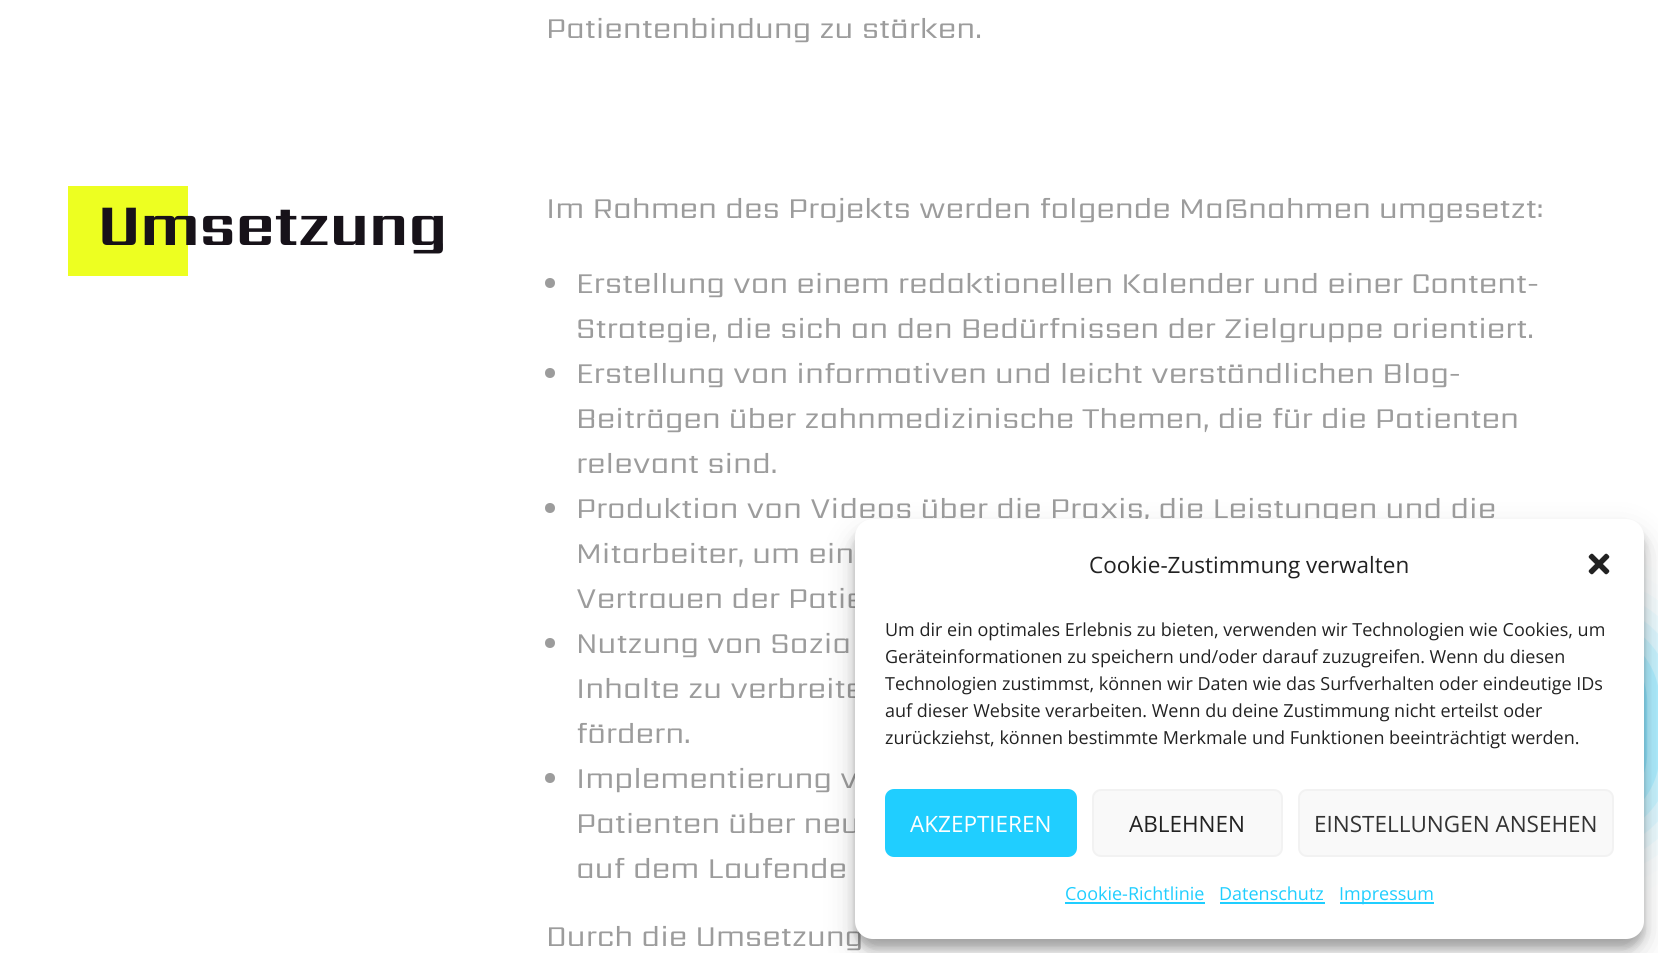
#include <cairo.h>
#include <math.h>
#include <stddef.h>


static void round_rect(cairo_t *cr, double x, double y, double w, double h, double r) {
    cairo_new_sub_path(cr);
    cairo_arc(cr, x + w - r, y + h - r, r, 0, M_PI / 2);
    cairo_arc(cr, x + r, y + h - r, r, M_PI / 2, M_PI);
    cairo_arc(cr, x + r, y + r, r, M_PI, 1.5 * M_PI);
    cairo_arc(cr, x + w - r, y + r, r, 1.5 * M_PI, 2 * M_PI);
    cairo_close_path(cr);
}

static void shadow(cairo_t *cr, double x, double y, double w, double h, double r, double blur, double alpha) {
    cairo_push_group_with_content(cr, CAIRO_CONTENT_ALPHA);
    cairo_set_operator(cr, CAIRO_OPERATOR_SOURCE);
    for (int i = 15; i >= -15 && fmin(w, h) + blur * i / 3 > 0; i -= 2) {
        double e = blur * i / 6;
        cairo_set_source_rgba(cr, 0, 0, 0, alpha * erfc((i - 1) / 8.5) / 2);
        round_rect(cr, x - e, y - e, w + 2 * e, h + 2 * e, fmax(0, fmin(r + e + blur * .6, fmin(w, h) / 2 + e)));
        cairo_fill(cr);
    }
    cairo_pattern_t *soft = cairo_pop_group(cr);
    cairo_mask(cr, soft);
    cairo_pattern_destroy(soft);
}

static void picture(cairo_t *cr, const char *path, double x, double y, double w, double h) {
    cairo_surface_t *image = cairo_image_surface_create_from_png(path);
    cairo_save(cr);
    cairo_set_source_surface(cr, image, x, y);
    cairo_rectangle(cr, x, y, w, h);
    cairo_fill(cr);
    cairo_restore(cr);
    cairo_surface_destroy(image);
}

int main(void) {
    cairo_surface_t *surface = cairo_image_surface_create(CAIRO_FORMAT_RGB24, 1658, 953);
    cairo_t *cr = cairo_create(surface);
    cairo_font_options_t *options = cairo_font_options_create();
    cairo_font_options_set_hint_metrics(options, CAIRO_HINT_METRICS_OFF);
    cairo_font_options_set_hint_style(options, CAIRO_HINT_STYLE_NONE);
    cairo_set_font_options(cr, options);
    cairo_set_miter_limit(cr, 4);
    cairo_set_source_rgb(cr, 1, 1, 1);
    cairo_paint(cr);
    cairo_select_font_face(cr, "Sarpanch", CAIRO_FONT_SLANT_NORMAL, CAIRO_FONT_WEIGHT_NORMAL);
    cairo_set_font_size(cr, 30);
    cairo_set_source_rgb(cr, 0.612, 0.612, 0.612);
    cairo_move_to(cr, 546, 38);
    cairo_show_text(cr, "Patientenbindung zu stärken.");
    cairo_set_source_rgb(cr, 0.929, 1, 0.129);
    cairo_rectangle(cr, 68, 186, 120, 90);
    cairo_fill(cr);
    cairo_select_font_face(cr, "Sarpanch", CAIRO_FONT_SLANT_NORMAL, CAIRO_FONT_WEIGHT_BOLD);
    cairo_set_font_size(cr, 60);
    cairo_set_source_rgb(cr, 0.09, 0.071, 0.098);
    cairo_move_to(cr, 98, 245);
    cairo_show_text(cr, "Umsetzung");
    cairo_select_font_face(cr, "Sarpanch", CAIRO_FONT_SLANT_NORMAL, CAIRO_FONT_WEIGHT_NORMAL);
    cairo_set_font_size(cr, 30);
    cairo_set_source_rgb(cr, 0.612, 0.612, 0.612);
    cairo_move_to(cr, 546, 218);
    cairo_show_text(cr, "Im Rahmen des Projekts werden folgende Maßnahmen umgesetzt:");
    cairo_new_path(cr);
    cairo_arc(cr, 550, 283, 5, 0, 2 * M_PI);
    cairo_fill(cr);
    cairo_move_to(cr, 576, 293);
    cairo_show_text(cr, "Erstellung von einem redaktionellen Kalender und einer Content-");
    cairo_move_to(cr, 576, 338);
    cairo_show_text(cr, "Strategie, die sich an den Bedürfnissen der Zielgruppe orientiert.");
    cairo_new_path(cr);
    cairo_arc(cr, 550, 373, 5, 0, 2 * M_PI);
    cairo_fill(cr);
    cairo_move_to(cr, 576, 383);
    cairo_show_text(cr, "Erstellung von informativen und leicht verständlichen Blog-");
    cairo_move_to(cr, 576, 428);
    cairo_show_text(cr, "Beiträgen über zahnmedizinische Themen, die für die Patienten");
    cairo_move_to(cr, 576, 473);
    cairo_show_text(cr, "relevant sind.");
    cairo_new_path(cr);
    cairo_arc(cr, 550, 508, 5, 0, 2 * M_PI);
    cairo_fill(cr);
    cairo_move_to(cr, 576, 518);
    cairo_show_text(cr, "Produktion von Videos über die Praxis, die Leistungen und die");
    cairo_move_to(cr, 576, 563);
    cairo_show_text(cr, "Mitarbeiter, um ein");
    cairo_move_to(cr, 576, 608);
    cairo_show_text(cr, "Vertrauen der Patie");
    cairo_new_path(cr);
    cairo_arc(cr, 550, 643, 5, 0, 2 * M_PI);
    cairo_fill(cr);
    cairo_move_to(cr, 576, 653);
    cairo_show_text(cr, "Nutzung von Sozia");
    cairo_move_to(cr, 576, 698);
    cairo_show_text(cr, "Inhalte zu verbreite");
    cairo_move_to(cr, 576, 743);
    cairo_show_text(cr, "fördern.");
    cairo_new_path(cr);
    cairo_arc(cr, 550, 778, 5, 0, 2 * M_PI);
    cairo_fill(cr);
    cairo_move_to(cr, 576, 788);
    cairo_show_text(cr, "Implementierung v");
    cairo_move_to(cr, 576, 833);
    cairo_show_text(cr, "Patienten über neu");
    cairo_move_to(cr, 576, 878);
    cairo_show_text(cr, "auf dem Laufende");
    cairo_move_to(cr, 546, 946);
    cairo_show_text(cr, "Durch die Umsetzung");
    cairo_set_source_rgb(cr, 0.129, 0.808, 1);
    shadow(cr, 1527, 645, 114, 165, 57, 37.5, 1);
    cairo_set_source_rgb(cr, 0, 0, 0);
    shadow(cr, 855, 528, 789, 420, 18, 4.5, 0.23);
    shadow(cr, 855, 534, 789, 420, 18, 15, 0.19);
    cairo_set_source_rgb(cr, 1, 1, 1);
    round_rect(cr, 855, 519, 789, 420, 18);
    cairo_fill(cr);
    cairo_select_font_face(cr, "Open Sans", CAIRO_FONT_SLANT_NORMAL, CAIRO_FONT_WEIGHT_NORMAL);
    cairo_set_font_size(cr, 22.5);
    cairo_set_source_rgb(cr, 0.133, 0.133, 0.133);
    cairo_move_to(cr, 1089, 573);
    cairo_show_text(cr, "Cookie-Zustimmung verwalten");
    picture(cr, "img1.png", 1588, 553, 22, 22);
    cairo_set_font_size(cr, 18);
    cairo_move_to(cr, 885, 636);
    cairo_show_text(cr, "Um dir ein optimales Erlebnis zu bieten, verwenden wir Technologien wie Cookies, um");
    cairo_move_to(cr, 885, 663);
    cairo_show_text(cr, "Geräteinformationen zu speichern und/oder darauf zuzugreifen. Wenn du diesen");
    cairo_move_to(cr, 885, 690);
    cairo_show_text(cr, "Technologien zustimmst, können wir Daten wie das Surfverhalten oder eindeutige IDs");
    cairo_move_to(cr, 885, 717);
    cairo_show_text(cr, "auf dieser Website verarbeiten. Wenn du deine Zustimmung nicht erteilst oder");
    cairo_move_to(cr, 885, 744);
    cairo_show_text(cr, "zurückziehst, können bestimmte Merkmale und Funktionen beeinträchtigt werden.");
    cairo_set_source_rgb(cr, 0.125, 0.808, 1);
    round_rect(cr, 886, 790, 190, 66, 8);
    cairo_fill_preserve(cr);
    cairo_stroke(cr);
    cairo_set_font_size(cr, 22.5);
    cairo_set_source_rgb(cr, 1, 1, 1);
    cairo_move_to(cr, 910, 832);
    cairo_show_text(cr, "AKZEPTIEREN");
    cairo_set_source_rgb(cr, 0.976, 0.976, 0.976);
    round_rect(cr, 1093, 790, 189, 66, 8);
    cairo_fill_preserve(cr);
    cairo_set_source_rgb(cr, 0.949, 0.949, 0.949);
    cairo_stroke(cr);
    cairo_set_source_rgb(cr, 0.133, 0.133, 0.133);
    cairo_move_to(cr, 1129, 832);
    cairo_show_text(cr, "ABLEHNEN");
    cairo_set_source_rgb(cr, 0.976, 0.976, 0.976);
    round_rect(cr, 1299, 790, 314, 66, 8);
    cairo_fill_preserve(cr);
    cairo_set_source_rgb(cr, 0.949, 0.949, 0.949);
    cairo_stroke(cr);
    cairo_set_source_rgb(cr, 0.2, 0.2, 0.2);
    cairo_move_to(cr, 1314, 832);
    cairo_show_text(cr, "EINSTELLUNGEN ANSEHEN");
    cairo_set_font_size(cr, 18);
    cairo_set_source_rgb(cr, 0.125, 0.808, 1);
    cairo_move_to(cr, 1065, 900);
    cairo_show_text(cr, "Cookie-Richtlinie");
    cairo_rectangle(cr, 1065, 902, 140, 2);
    cairo_fill(cr);
    cairo_move_to(cr, 1219, 900);
    cairo_show_text(cr, "Datenschutz");
    cairo_rectangle(cr, 1220, 902, 105, 2);
    cairo_fill(cr);
    cairo_rectangle(cr, 1340, 902, 94, 2);
    cairo_fill(cr);
    cairo_move_to(cr, 1339, 900);
    cairo_show_text(cr, "Impressum");
    cairo_surface_write_to_png(surface, "page.png");
    cairo_font_options_destroy(options);
    cairo_destroy(cr);
    cairo_surface_destroy(surface);
    return 0;
}
